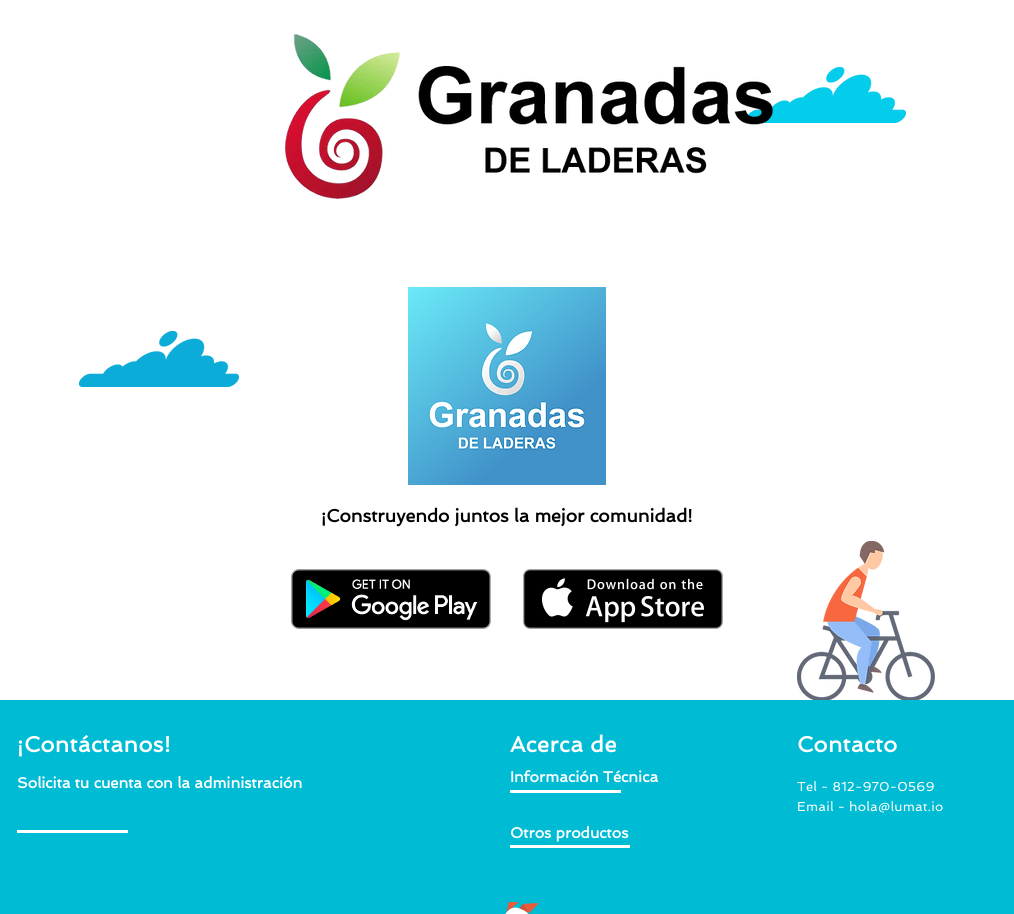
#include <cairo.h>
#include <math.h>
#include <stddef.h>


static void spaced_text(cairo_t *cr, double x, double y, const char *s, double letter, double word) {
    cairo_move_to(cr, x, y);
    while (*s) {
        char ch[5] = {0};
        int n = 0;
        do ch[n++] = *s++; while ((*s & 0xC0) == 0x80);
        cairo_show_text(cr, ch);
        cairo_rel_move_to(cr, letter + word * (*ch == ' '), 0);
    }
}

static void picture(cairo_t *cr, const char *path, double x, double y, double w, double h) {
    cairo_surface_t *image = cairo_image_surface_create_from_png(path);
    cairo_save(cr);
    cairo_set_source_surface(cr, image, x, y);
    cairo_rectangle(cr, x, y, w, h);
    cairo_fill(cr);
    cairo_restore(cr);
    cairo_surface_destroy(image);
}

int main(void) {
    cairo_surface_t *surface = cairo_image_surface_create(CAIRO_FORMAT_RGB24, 1014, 914);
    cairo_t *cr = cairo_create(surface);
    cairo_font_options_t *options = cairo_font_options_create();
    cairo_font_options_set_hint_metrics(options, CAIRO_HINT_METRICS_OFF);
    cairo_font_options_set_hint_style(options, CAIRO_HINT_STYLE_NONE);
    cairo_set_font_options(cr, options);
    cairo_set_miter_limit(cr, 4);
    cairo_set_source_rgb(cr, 1, 1, 1);
    cairo_paint(cr);
    picture(cr, "img2.png", 746, 67, 160, 56);
    picture(cr, "img1.png", 285, 34, 488, 165);
    picture(cr, "img3.png", 79, 331, 160, 56);
    picture(cr, "img4.png", 408, 287, 198, 198);
    cairo_select_font_face(cr, "Spinnaker", CAIRO_FONT_SLANT_NORMAL, CAIRO_FONT_WEIGHT_BOLD);
    cairo_set_font_size(cr, 18);
    cairo_set_source_rgb(cr, 0, 0, 0);
    cairo_move_to(cr, 321, 522);
    cairo_show_text(cr, "¡Construyendo juntos la mejor comunidad!");
    picture(cr, "img5.png", 291, 569, 200, 60);
    picture(cr, "img6.png", 523, 569, 200, 60);
    picture(cr, "img7.png", 797, 541, 138, 159);
    cairo_set_source_rgb(cr, 0, 0.733, 0.831);
    cairo_rectangle(cr, 0, 700, 1014, 214);
    cairo_fill(cr);
    cairo_set_font_size(cr, 22);
    cairo_set_source_rgb(cr, 1, 1, 1);
    spaced_text(cr, 17, 752, "¡Contáctanos!", 0.5, 0);
    spaced_text(cr, 510, 752, "Acerca de", 0.5, 0);
    spaced_text(cr, 797, 752, "Contacto", 0.5, 0);
    cairo_set_font_size(cr, 15);
    cairo_move_to(cr, 17, 788);
    cairo_show_text(cr, "Solicita tu cuenta con la administración");
    cairo_move_to(cr, 510, 782);
    cairo_show_text(cr, "Información Técnica");
    cairo_rectangle(cr, 510, 790, 111, 3);
    cairo_fill(cr);
    cairo_select_font_face(cr, "Spinnaker", CAIRO_FONT_SLANT_NORMAL, CAIRO_FONT_WEIGHT_NORMAL);
    cairo_set_font_size(cr, 13);
    spaced_text(cr, 797, 791, "Tel - 812-970-0569", 0.25, 0);
    spaced_text(cr, 797, 811, "Email - hola@lumat.io", 0.25, 0);
    cairo_rectangle(cr, 17, 830, 111, 3);
    cairo_fill(cr);
    cairo_select_font_face(cr, "Spinnaker", CAIRO_FONT_SLANT_NORMAL, CAIRO_FONT_WEIGHT_BOLD);
    cairo_set_font_size(cr, 15);
    cairo_move_to(cr, 510, 838);
    cairo_show_text(cr, "Otros productos");
    cairo_rectangle(cr, 510, 845, 120, 3);
    cairo_fill(cr);
    picture(cr, "img8.png", 505, 902, 33, 12);
    cairo_surface_write_to_png(surface, "page.png");
    cairo_font_options_destroy(options);
    cairo_destroy(cr);
    cairo_surface_destroy(surface);
    return 0;
}
